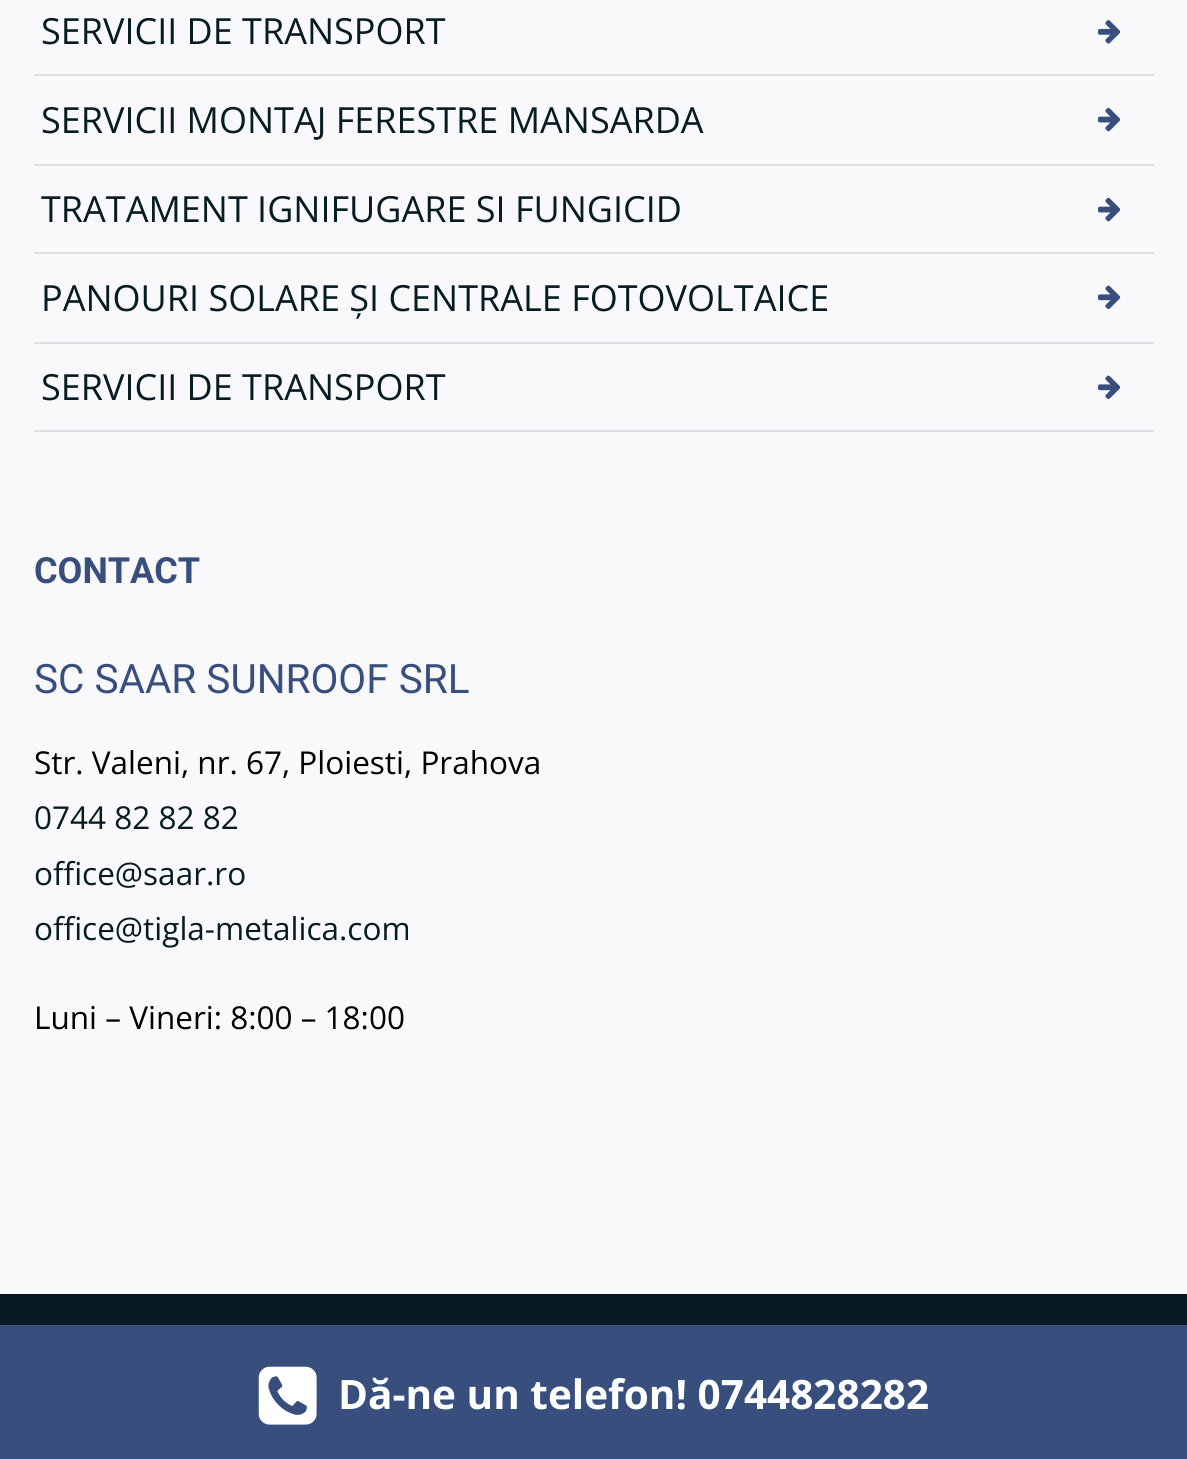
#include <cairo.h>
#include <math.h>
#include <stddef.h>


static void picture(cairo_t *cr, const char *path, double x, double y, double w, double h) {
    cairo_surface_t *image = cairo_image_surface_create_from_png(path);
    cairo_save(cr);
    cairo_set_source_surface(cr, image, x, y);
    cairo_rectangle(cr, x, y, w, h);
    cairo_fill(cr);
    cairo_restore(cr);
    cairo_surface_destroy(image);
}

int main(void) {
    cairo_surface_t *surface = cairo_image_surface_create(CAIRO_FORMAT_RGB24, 1187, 1459);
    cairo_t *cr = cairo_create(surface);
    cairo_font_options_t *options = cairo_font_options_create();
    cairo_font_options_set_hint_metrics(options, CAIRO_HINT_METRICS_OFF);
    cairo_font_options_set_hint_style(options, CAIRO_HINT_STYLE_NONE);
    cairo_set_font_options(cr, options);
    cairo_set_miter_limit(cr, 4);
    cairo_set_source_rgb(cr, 0.973, 0.976, 0.988);
    cairo_paint(cr);
    cairo_set_source_rgb(cr, 0.875, 0.878, 0.89);
    cairo_rectangle(cr, 34, 74, 1120, 2);
    cairo_fill(cr);
    cairo_select_font_face(cr, "Open Sans", CAIRO_FONT_SLANT_NORMAL, CAIRO_FONT_WEIGHT_NORMAL);
    cairo_set_font_size(cr, 36);
    cairo_set_source_rgb(cr, 0.027, 0.11, 0.133);
    cairo_move_to(cr, 41, 44);
    cairo_show_text(cr, "SERVICII DE TRANSPORT");
    picture(cr, "img1.png", 1098, 20, 23, 24);
    cairo_set_source_rgb(cr, 0.875, 0.878, 0.89);
    cairo_rectangle(cr, 34, 164, 1120, 2);
    cairo_fill(cr);
    cairo_set_source_rgb(cr, 0.027, 0.11, 0.133);
    cairo_move_to(cr, 41, 133);
    cairo_show_text(cr, "SERVICII MONTAJ FERESTRE MANSARDA");
    picture(cr, "img2.png", 1098, 107, 23, 25);
    cairo_set_source_rgb(cr, 0.875, 0.878, 0.89);
    cairo_rectangle(cr, 34, 252, 1120, 2);
    cairo_fill(cr);
    cairo_set_source_rgb(cr, 0.027, 0.11, 0.133);
    cairo_move_to(cr, 41, 222);
    cairo_show_text(cr, "TRATAMENT IGNIFUGARE SI FUNGICID");
    picture(cr, "img2.png", 1098, 197, 23, 25);
    cairo_set_source_rgb(cr, 0.875, 0.878, 0.89);
    cairo_rectangle(cr, 34, 342, 1120, 2);
    cairo_fill(cr);
    cairo_set_source_rgb(cr, 0.027, 0.11, 0.133);
    cairo_move_to(cr, 41, 311);
    cairo_show_text(cr, "PANOURI SOLARE ȘI CENTRALE FOTOVOLTAICE");
    picture(cr, "img3.png", 1098, 285, 23, 24);
    cairo_set_source_rgb(cr, 0.875, 0.878, 0.89);
    cairo_rectangle(cr, 34, 430, 1120, 2);
    cairo_fill(cr);
    cairo_set_source_rgb(cr, 0.027, 0.11, 0.133);
    cairo_move_to(cr, 41, 400);
    cairo_show_text(cr, "SERVICII DE TRANSPORT");
    picture(cr, "img3.png", 1098, 375, 23, 24);
    cairo_select_font_face(cr, "Roboto", CAIRO_FONT_SLANT_NORMAL, CAIRO_FONT_WEIGHT_BOLD);
    cairo_set_source_rgb(cr, 0.22, 0.31, 0.49);
    cairo_move_to(cr, 34, 583);
    cairo_show_text(cr, "CONTACT");
    cairo_select_font_face(cr, "Roboto", CAIRO_FONT_SLANT_NORMAL, CAIRO_FONT_WEIGHT_NORMAL);
    cairo_set_font_size(cr, 40.5);
    cairo_move_to(cr, 34, 693);
    cairo_show_text(cr, "SC SAAR SUNROOF SRL");
    cairo_select_font_face(cr, "Open Sans", CAIRO_FONT_SLANT_NORMAL, CAIRO_FONT_WEIGHT_NORMAL);
    cairo_set_font_size(cr, 31.5);
    cairo_set_source_rgb(cr, 0, 0, 0);
    cairo_move_to(cr, 34, 774);
    cairo_show_text(cr, "Str. Valeni, nr. 67, Ploiesti, Prahova");
    cairo_set_source_rgb(cr, 0.027, 0.11, 0.133);
    cairo_move_to(cr, 34, 829);
    cairo_show_text(cr, "0744 82 82 82");
    cairo_move_to(cr, 34, 885);
    cairo_show_text(cr, "office@saar.ro");
    cairo_move_to(cr, 34, 940);
    cairo_show_text(cr, "office@tigla-metalica.com");
    cairo_set_source_rgb(cr, 0, 0, 0);
    cairo_move_to(cr, 34, 1029);
    cairo_show_text(cr, "Luni – Vineri: 8:00 – 18:00");
    cairo_set_source_rgb(cr, 0.027, 0.11, 0.133);
    cairo_rectangle(cr, 0, 1294, 1187, 31);
    cairo_fill(cr);
    cairo_set_source_rgb(cr, 0.22, 0.31, 0.49);
    cairo_rectangle(cr, 0, 1325, 1187, 134);
    cairo_fill(cr);
    picture(cr, "img4.png", 258, 1366, 59, 59);
    cairo_select_font_face(cr, "Open Sans", CAIRO_FONT_SLANT_NORMAL, CAIRO_FONT_WEIGHT_BOLD);
    cairo_set_font_size(cr, 40.5);
    cairo_set_source_rgb(cr, 1, 1, 1);
    cairo_move_to(cr, 338, 1409);
    cairo_show_text(cr, "Dă-ne un telefon! 0744828282");
    cairo_surface_write_to_png(surface, "page.png");
    cairo_font_options_destroy(options);
    cairo_destroy(cr);
    cairo_surface_destroy(surface);
    return 0;
}
